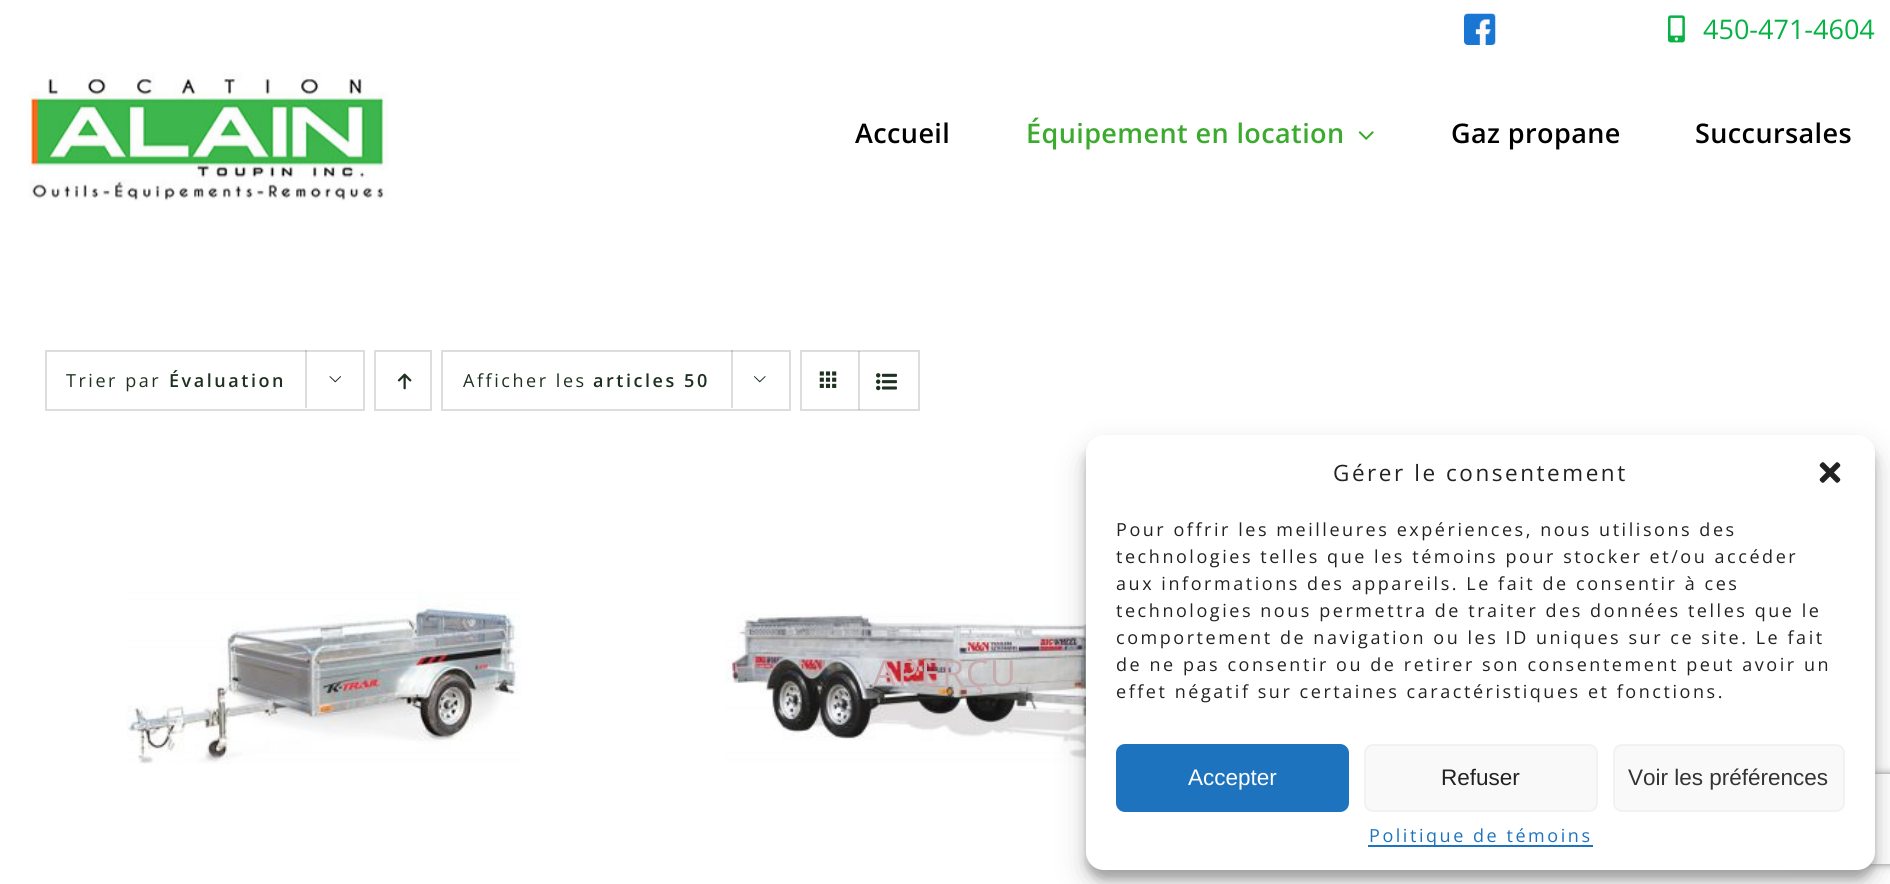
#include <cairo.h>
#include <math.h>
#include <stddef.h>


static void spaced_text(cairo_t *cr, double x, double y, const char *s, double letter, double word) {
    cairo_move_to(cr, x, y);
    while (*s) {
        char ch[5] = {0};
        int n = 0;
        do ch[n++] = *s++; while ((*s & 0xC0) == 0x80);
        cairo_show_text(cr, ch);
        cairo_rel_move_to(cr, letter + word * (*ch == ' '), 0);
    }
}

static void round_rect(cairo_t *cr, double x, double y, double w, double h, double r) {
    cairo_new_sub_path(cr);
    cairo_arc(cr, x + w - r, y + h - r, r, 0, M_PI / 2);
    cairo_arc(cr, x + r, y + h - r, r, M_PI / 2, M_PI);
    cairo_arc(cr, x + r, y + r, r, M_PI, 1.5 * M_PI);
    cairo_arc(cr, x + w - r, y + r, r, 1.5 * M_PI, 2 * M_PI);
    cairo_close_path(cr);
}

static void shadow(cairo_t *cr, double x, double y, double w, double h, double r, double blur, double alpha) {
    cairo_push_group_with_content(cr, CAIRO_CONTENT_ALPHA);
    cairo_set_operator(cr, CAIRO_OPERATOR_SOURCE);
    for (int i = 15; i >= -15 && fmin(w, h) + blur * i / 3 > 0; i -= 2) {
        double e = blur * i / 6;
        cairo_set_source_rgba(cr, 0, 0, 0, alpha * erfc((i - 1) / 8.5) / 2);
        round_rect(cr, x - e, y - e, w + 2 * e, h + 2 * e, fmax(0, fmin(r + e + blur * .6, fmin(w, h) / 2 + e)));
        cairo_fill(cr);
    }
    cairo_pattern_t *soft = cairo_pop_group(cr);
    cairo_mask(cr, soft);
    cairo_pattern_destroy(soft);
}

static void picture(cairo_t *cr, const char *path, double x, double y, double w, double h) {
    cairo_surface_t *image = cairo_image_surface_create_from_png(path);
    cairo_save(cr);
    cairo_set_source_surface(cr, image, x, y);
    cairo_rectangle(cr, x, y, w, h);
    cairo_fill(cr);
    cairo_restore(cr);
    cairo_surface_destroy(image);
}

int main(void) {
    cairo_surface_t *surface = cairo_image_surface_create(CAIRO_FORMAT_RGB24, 1890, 884);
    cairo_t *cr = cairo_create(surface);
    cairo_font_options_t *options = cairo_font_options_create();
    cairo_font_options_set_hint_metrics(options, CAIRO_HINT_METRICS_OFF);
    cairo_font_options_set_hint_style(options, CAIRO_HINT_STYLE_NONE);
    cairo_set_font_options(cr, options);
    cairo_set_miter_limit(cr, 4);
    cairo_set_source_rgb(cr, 1, 1, 1);
    cairo_paint(cr);
    picture(cr, "img1.png", 1464, 13, 32, 32);
    picture(cr, "img2.png", 1668, 15, 17, 28);
    cairo_select_font_face(cr, "Open Sans", CAIRO_FONT_SLANT_NORMAL, CAIRO_FONT_WEIGHT_NORMAL);
    cairo_set_font_size(cr, 27);
    cairo_set_source_rgb(cr, 0.031, 0.698, 0.267);
    cairo_move_to(cr, 1703, 39);
    cairo_show_text(cr, "450-471-4604");
    picture(cr, "img3.png", 29, 72, 360, 129);
    cairo_select_font_face(cr, "Open Sans SemiBold", CAIRO_FONT_SLANT_NORMAL, CAIRO_FONT_WEIGHT_NORMAL);
    cairo_set_source_rgb(cr, 0, 0, 0);
    spaced_text(cr, 855, 143, "Accueil", 0.4, 0);
    cairo_set_source_rgb(cr, 0.235, 0.667, 0.184);
    spaced_text(cr, 1026, 143, "Équipement en location", 0.4, 0);
    picture(cr, "img4.png", 1358, 131, 16, 9);
    cairo_set_source_rgb(cr, 0, 0, 0);
    spaced_text(cr, 1451, 143, "Gaz propane", 0.4, 0);
    spaced_text(cr, 1695, 143, "Succursales", 0.4, 0);
    cairo_rectangle(cr, 46, 351, 318, 59);
    cairo_set_source_rgb(cr, 0.859, 0.871, 0.859);
    cairo_stroke(cr);
    cairo_select_font_face(cr, "Open Sans", CAIRO_FONT_SLANT_NORMAL, CAIRO_FONT_WEIGHT_NORMAL);
    cairo_set_font_size(cr, 18);
    cairo_set_source_rgb(cr, 0.118, 0.192, 0.125);
    spaced_text(cr, 66, 387, "Trier par", 2.55, 0);
    cairo_select_font_face(cr, "Open Sans SemiBold", CAIRO_FONT_SLANT_NORMAL, CAIRO_FONT_WEIGHT_NORMAL);
    spaced_text(cr, 169, 387, "Évaluation", 2.55, 0);
    cairo_set_source_rgba(cr, 0.114, 0.184, 0.122, 0.16);
    cairo_rectangle(cr, 305, 350, 2, 58);
    cairo_fill(cr);
    picture(cr, "img5.png", 329, 376, 12, 7);
    cairo_rectangle(cr, 375, 351, 56, 59);
    cairo_set_source_rgb(cr, 0.859, 0.871, 0.859);
    cairo_stroke(cr);
    picture(cr, "img6.png", 397, 373, 15, 17);
    cairo_rectangle(cr, 442, 351, 348, 59);
    cairo_stroke(cr);
    cairo_select_font_face(cr, "Open Sans", CAIRO_FONT_SLANT_NORMAL, CAIRO_FONT_WEIGHT_NORMAL);
    cairo_set_source_rgb(cr, 0.118, 0.192, 0.125);
    spaced_text(cr, 463, 387, "Afficher les", 2.55, 0);
    cairo_select_font_face(cr, "Open Sans SemiBold", CAIRO_FONT_SLANT_NORMAL, CAIRO_FONT_WEIGHT_NORMAL);
    spaced_text(cr, 593, 387, "articles 50", 2.55, 0);
    cairo_set_source_rgba(cr, 0.114, 0.184, 0.122, 0.16);
    cairo_rectangle(cr, 731, 350, 2, 58);
    cairo_fill(cr);
    picture(cr, "img7.png", 754, 376, 12, 7);
    cairo_rectangle(cr, 801, 351, 118, 59);
    cairo_set_source_rgb(cr, 0.859, 0.871, 0.859);
    cairo_stroke(cr);
    cairo_set_source_rgba(cr, 0.114, 0.184, 0.122, 0.16);
    cairo_rectangle(cr, 858, 351, 2, 59);
    cairo_fill(cr);
    picture(cr, "img8.png", 819, 371, 18, 17);
    picture(cr, "img9.png", 876, 373, 21, 18);
    picture(cr, "img10.png", 126, 591, 395, 173);
    picture(cr, "img11.png", 725, 613, 361, 150);
    cairo_select_font_face(cr, "Open Sans", CAIRO_FONT_SLANT_NORMAL, CAIRO_FONT_WEIGHT_NORMAL);
    cairo_set_font_size(cr, 36);
    cairo_set_source_rgb(cr, 0.78, 0.671, 0.682);
    spaced_text(cr, 873, 686, "APERÇU", 1.5, 0);
    cairo_set_source_rgb(cr, 0, 0, 0);
    shadow(cr, 1086, 444, 789, 435, 18, 4.5, 0.23);
    shadow(cr, 1086, 450, 789, 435, 18, 15, 0.19);
    cairo_save(cr);
    cairo_set_fill_rule(cr, CAIRO_FILL_RULE_EVEN_ODD);
    cairo_new_path(cr);
    cairo_move_to(cr, 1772, 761);
    cairo_line_to(cr, 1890, 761);
    cairo_line_to(cr, 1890, 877);
    cairo_line_to(cr, 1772, 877);
    cairo_close_path(cr);
    cairo_move_to(cr, 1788, 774);
    cairo_line_to(cr, 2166, 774);
    cairo_curve_to(cr, 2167.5, 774, 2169, 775.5, 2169, 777);
    cairo_line_to(cr, 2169, 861);
    cairo_curve_to(cr, 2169, 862.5, 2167.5, 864, 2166, 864);
    cairo_line_to(cr, 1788, 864);
    cairo_curve_to(cr, 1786.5, 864, 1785, 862.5, 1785, 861);
    cairo_line_to(cr, 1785, 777);
    cairo_curve_to(cr, 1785, 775.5, 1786.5, 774, 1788, 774);
    cairo_close_path(cr);
    cairo_clip(cr);
    cairo_set_source_rgb(cr, 0.502, 0.502, 0.502);
    shadow(cr, 1785, 774, 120, 90, 3, 4, 1);
    cairo_restore(cr);
    cairo_set_source_rgb(cr, 1, 1, 1);
    round_rect(cr, 1086, 435, 789, 435, 18);
    cairo_fill(cr);
    cairo_set_font_size(cr, 22.5);
    cairo_set_source_rgb(cr, 0.133, 0.133, 0.133);
    spaced_text(cr, 1333, 481, "Gérer le consentement", 2.55, 0);
    picture(cr, "img12.png", 1819, 462, 22, 21);
    cairo_set_font_size(cr, 18);
    spaced_text(cr, 1116, 536, "Pour offrir les meilleures expériences, nous utilisons des", 2.55, 0);
    spaced_text(cr, 1116, 563, "technologies telles que les témoins pour stocker et/ou accéder", 2.55, 0);
    spaced_text(cr, 1116, 590, "aux informations des appareils. Le fait de consentir à ces", 2.55, 0);
    spaced_text(cr, 1116, 617, "technologies nous permettra de traiter des données telles que le", 2.55, 0);
    spaced_text(cr, 1116, 644, "comportement de navigation ou les ID uniques sur ce site. Le fait", 2.55, 0);
    spaced_text(cr, 1116, 671, "de ne pas consentir ou de retirer son consentement peut avoir un", 2.55, 0);
    spaced_text(cr, 1116, 698, "effet négatif sur certaines caractéristiques et fonctions.", 2.55, 0);
    cairo_set_source_rgb(cr, 0.118, 0.451, 0.745);
    round_rect(cr, 1117, 745, 231, 66, 8);
    cairo_fill_preserve(cr);
    cairo_stroke(cr);
    cairo_select_font_face(cr, "Liberation Sans", CAIRO_FONT_SLANT_NORMAL, CAIRO_FONT_WEIGHT_NORMAL);
    cairo_set_font_size(cr, 22.5);
    cairo_set_source_rgb(cr, 1, 1, 1);
    cairo_move_to(cr, 1188, 785);
    cairo_show_text(cr, "Accepter");
    cairo_set_source_rgb(cr, 0.976, 0.976, 0.976);
    round_rect(cr, 1365, 745, 232, 66, 8);
    cairo_fill_preserve(cr);
    cairo_set_source_rgb(cr, 0.949, 0.949, 0.949);
    cairo_stroke(cr);
    cairo_set_source_rgb(cr, 0.133, 0.133, 0.133);
    cairo_move_to(cr, 1441, 785);
    cairo_show_text(cr, "Refuser");
    cairo_set_source_rgb(cr, 0.976, 0.976, 0.976);
    round_rect(cr, 1614, 745, 230, 66, 8);
    cairo_fill_preserve(cr);
    cairo_set_source_rgb(cr, 0.949, 0.949, 0.949);
    cairo_stroke(cr);
    cairo_set_source_rgb(cr, 0.2, 0.2, 0.2);
    cairo_move_to(cr, 1628, 785);
    cairo_show_text(cr, "Voir les préférences");
    cairo_set_source_rgb(cr, 0.118, 0.451, 0.745);
    cairo_rectangle(cr, 1368, 845, 225, 2);
    cairo_fill(cr);
    cairo_select_font_face(cr, "Open Sans", CAIRO_FONT_SLANT_NORMAL, CAIRO_FONT_WEIGHT_NORMAL);
    cairo_set_font_size(cr, 18);
    spaced_text(cr, 1369, 842, "Politique de témoins", 2.55, 0);
    cairo_surface_write_to_png(surface, "page.png");
    cairo_font_options_destroy(options);
    cairo_destroy(cr);
    cairo_surface_destroy(surface);
    return 0;
}
